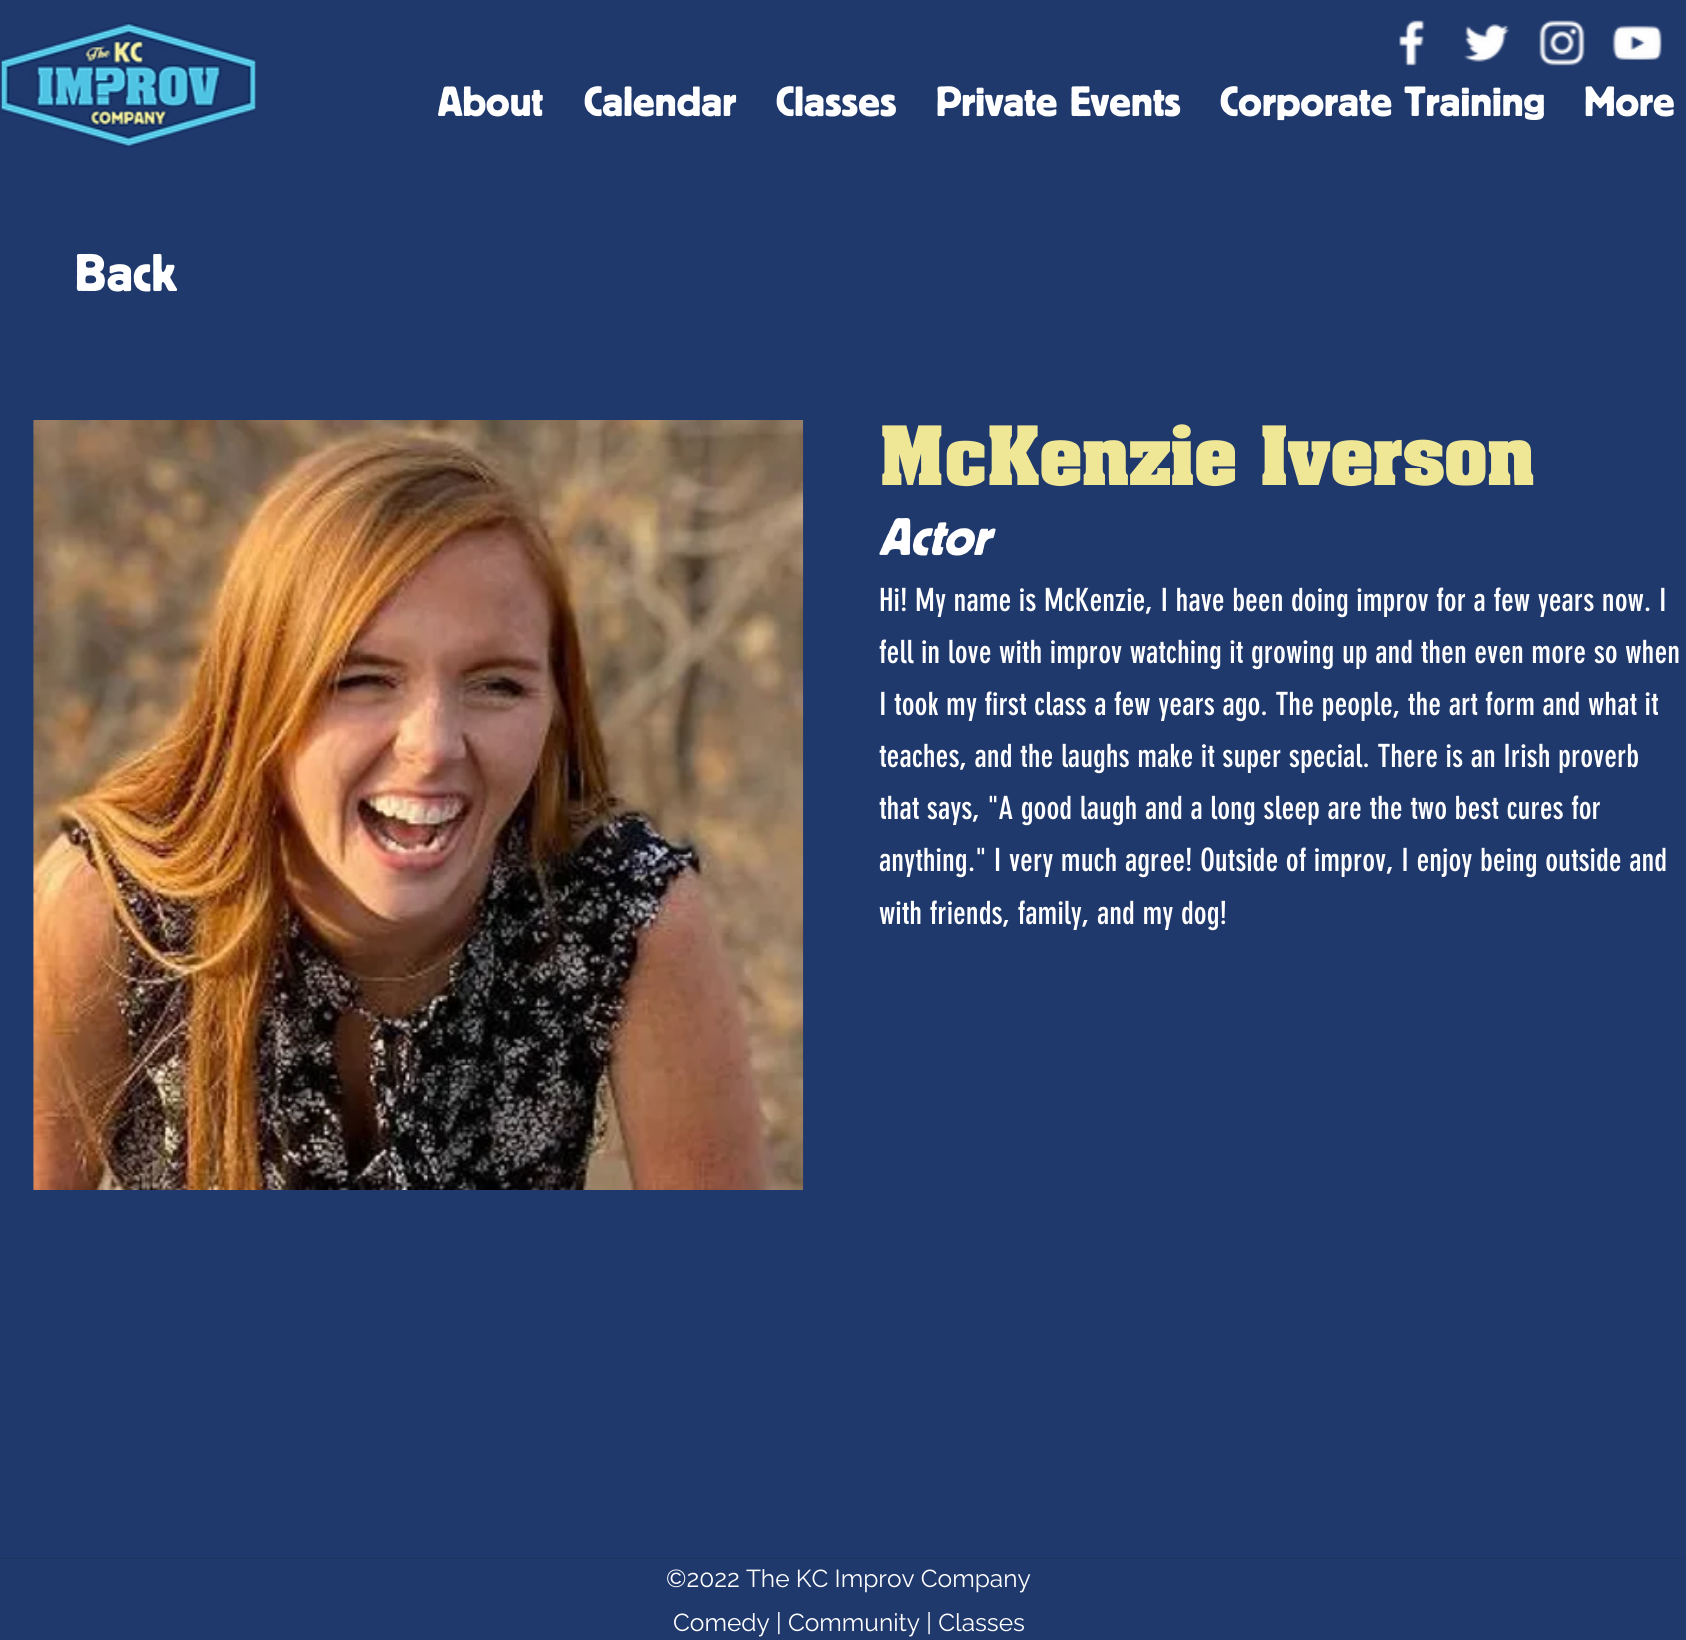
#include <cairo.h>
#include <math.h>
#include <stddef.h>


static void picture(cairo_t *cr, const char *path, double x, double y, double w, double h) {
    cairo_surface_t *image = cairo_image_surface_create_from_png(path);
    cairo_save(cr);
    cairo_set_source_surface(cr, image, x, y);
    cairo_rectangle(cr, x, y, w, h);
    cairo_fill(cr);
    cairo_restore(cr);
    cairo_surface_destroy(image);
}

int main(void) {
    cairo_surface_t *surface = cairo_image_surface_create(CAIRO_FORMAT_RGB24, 1686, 1640);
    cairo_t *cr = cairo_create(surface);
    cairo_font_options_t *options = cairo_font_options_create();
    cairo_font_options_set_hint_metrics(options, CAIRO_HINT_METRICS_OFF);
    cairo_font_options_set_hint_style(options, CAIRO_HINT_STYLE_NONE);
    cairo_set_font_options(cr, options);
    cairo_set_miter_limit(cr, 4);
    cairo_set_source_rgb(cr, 0.125, 0.224, 0.427);
    cairo_paint(cr);
    picture(cr, "img1.png", 1, 22, 255, 126);
    picture(cr, "img2.png", 1399, 20, 26, 46);
    picture(cr, "img3.png", 1464, 24, 46, 38);
    picture(cr, "img4.png", 1539, 20, 46, 46);
    picture(cr, "img5.png", 1612, 25, 50, 35);
    cairo_select_font_face(cr, "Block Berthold", CAIRO_FONT_SLANT_NORMAL, CAIRO_FONT_WEIGHT_NORMAL);
    cairo_set_font_size(cr, 42);
    cairo_set_source_rgb(cr, 1, 1, 1);
    cairo_move_to(cr, 438, 116);
    cairo_show_text(cr, "About");
    cairo_move_to(cr, 584, 116);
    cairo_show_text(cr, "Calendar");
    cairo_move_to(cr, 776, 116);
    cairo_show_text(cr, "Classes");
    cairo_move_to(cr, 936, 116);
    cairo_show_text(cr, "Private Events");
    cairo_move_to(cr, 1220, 116);
    cairo_show_text(cr, "Corporate Training");
    cairo_move_to(cr, 1584, 116);
    cairo_show_text(cr, "More");
    cairo_set_font_size(cr, 52.5);
    cairo_move_to(cr, 75, 291);
    cairo_show_text(cr, "Back");
    picture(cr, "img6.png", 33, 420, 771, 770);
    cairo_select_font_face(cr, "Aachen", CAIRO_FONT_SLANT_NORMAL, CAIRO_FONT_WEIGHT_BOLD);
    cairo_set_font_size(cr, 70);
    cairo_set_source_rgb(cr, 0.941, 0.906, 0.588);
    cairo_move_to(cr, 879, 485);
    cairo_show_text(cr, "McKenzie Iverson");
    cairo_select_font_face(cr, "Block Berthold", CAIRO_FONT_SLANT_ITALIC, CAIRO_FONT_WEIGHT_NORMAL);
    cairo_set_font_size(cr, 52.5);
    cairo_set_source_rgb(cr, 1, 1, 1);
    cairo_move_to(cr, 879, 555);
    cairo_show_text(cr, "Actor");
    cairo_select_font_face(cr, "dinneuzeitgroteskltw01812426", CAIRO_FONT_SLANT_NORMAL, CAIRO_FONT_WEIGHT_NORMAL);
    cairo_set_font_size(cr, 31.5);
    cairo_move_to(cr, 879, 611);
    cairo_show_text(cr, "Hi! My name is McKenzie, I have been doing improv for a few years now. I");
    cairo_move_to(cr, 879, 663);
    cairo_show_text(cr, "fell in love with improv watching it growing up and then even more so when");
    cairo_move_to(cr, 879, 715);
    cairo_show_text(cr, "I took my first class a few years ago. The people, the art form and what it");
    cairo_move_to(cr, 879, 767);
    cairo_show_text(cr, "teaches, and the laughs make it super special. There is an Irish proverb");
    cairo_move_to(cr, 879, 819);
    cairo_show_text(cr, "that says, \"A good laugh and a long sleep are the two best cures for");
    cairo_move_to(cr, 879, 871);
    cairo_show_text(cr, "anything.\" I very much agree! Outside of improv, I enjoy being outside and");
    cairo_move_to(cr, 879, 924);
    cairo_show_text(cr, "with friends, family, and my dog!");
    cairo_set_source_rgb(cr, 0.122, 0.204, 0.376);
    cairo_rectangle(cr, 0, 1558, 1686, 1);
    cairo_fill(cr);
    cairo_select_font_face(cr, "Raleway", CAIRO_FONT_SLANT_NORMAL, CAIRO_FONT_WEIGHT_NORMAL);
    cairo_set_font_size(cr, 24.5);
    cairo_set_source_rgb(cr, 1, 1, 1);
    cairo_move_to(cr, 666, 1587);
    cairo_show_text(cr, "©2022 The KC Improv Company");
    cairo_move_to(cr, 673, 1631);
    cairo_show_text(cr, "Comedy | Community | Classes");
    cairo_surface_write_to_png(surface, "page.png");
    cairo_font_options_destroy(options);
    cairo_destroy(cr);
    cairo_surface_destroy(surface);
    return 0;
}
